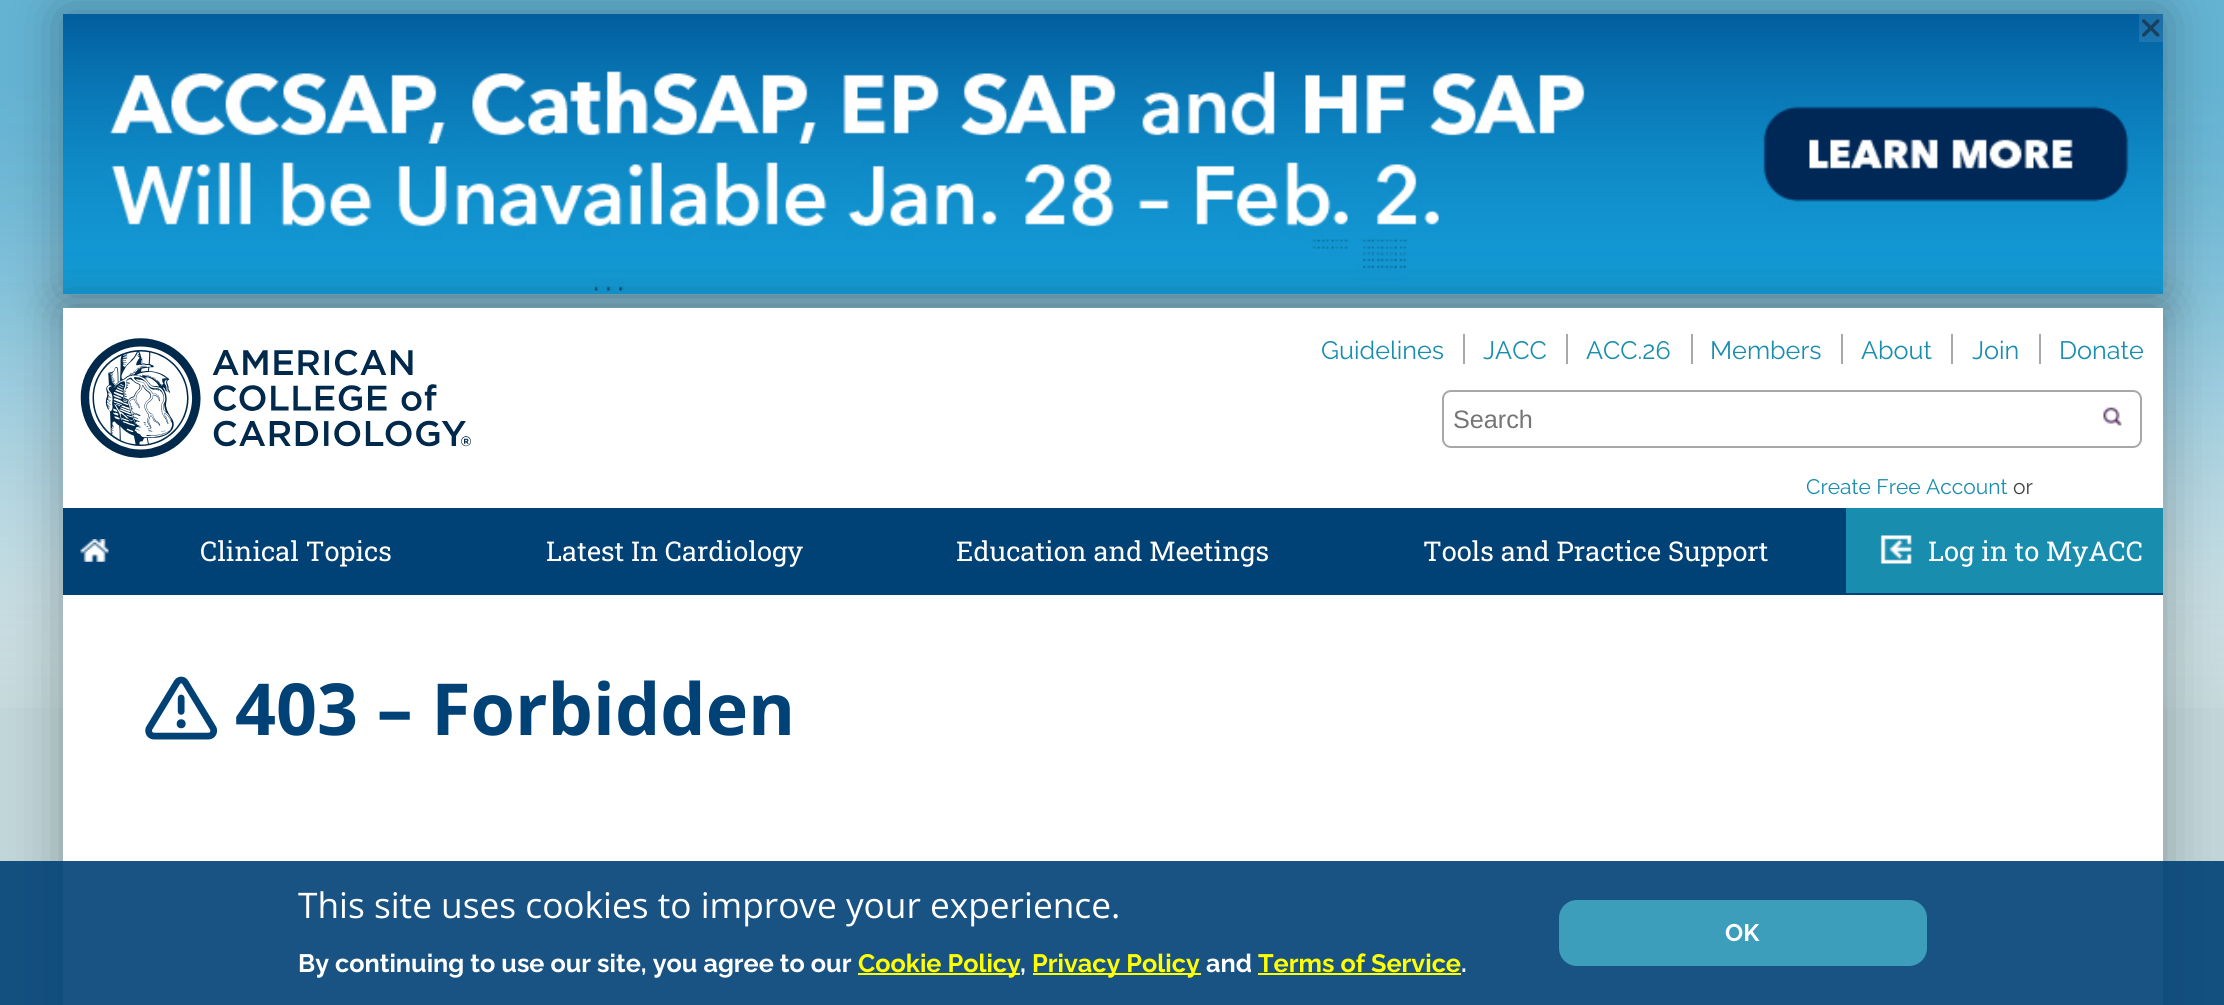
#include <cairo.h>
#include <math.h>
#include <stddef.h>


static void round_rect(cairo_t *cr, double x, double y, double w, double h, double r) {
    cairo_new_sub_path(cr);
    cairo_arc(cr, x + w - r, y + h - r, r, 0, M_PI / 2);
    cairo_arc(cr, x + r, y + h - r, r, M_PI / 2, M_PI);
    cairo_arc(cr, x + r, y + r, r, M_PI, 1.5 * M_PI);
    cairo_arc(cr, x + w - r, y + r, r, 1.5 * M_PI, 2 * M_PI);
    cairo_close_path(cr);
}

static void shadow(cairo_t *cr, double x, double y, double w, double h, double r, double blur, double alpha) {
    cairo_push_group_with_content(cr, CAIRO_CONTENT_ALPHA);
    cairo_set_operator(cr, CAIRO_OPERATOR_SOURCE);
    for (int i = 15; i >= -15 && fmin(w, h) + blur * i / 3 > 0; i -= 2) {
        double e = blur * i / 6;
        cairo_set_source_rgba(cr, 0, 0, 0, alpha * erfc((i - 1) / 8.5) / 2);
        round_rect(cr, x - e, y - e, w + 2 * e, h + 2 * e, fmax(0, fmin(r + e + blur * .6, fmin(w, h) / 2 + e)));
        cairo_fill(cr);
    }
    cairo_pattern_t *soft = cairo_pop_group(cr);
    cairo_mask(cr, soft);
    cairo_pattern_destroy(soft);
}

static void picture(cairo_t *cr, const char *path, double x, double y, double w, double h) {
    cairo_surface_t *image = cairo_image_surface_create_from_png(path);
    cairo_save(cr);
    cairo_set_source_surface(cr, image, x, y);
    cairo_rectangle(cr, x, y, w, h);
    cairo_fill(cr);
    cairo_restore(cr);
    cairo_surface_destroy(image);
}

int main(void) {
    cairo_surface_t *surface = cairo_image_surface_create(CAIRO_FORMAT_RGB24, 2224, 1005);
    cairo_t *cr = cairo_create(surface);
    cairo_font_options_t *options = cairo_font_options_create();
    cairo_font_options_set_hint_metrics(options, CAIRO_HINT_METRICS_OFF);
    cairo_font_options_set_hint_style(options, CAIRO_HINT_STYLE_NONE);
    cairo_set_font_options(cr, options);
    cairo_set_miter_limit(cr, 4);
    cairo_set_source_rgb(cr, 0.757, 0.839, 0.851);
    cairo_paint(cr);
    picture(cr, "img1.png", 0, 0, 2224, 708);
    cairo_set_source_rgb(cr, 0, 0, 0);
    shadow(cr, 63, 14, 2100, 280, 0, 26, 0.3);
    picture(cr, "img2.png", 63, 14, 2100, 280);
    cairo_set_source_rgba(cr, 1, 1, 1, 0.1);
    cairo_rectangle(cr, 2139, 14, 24, 28);
    cairo_fill(cr);
    picture(cr, "img3.png", 2142, 19, 18, 18);
    cairo_set_source_rgb(cr, 0, 0, 0);
    shadow(cr, 63, 308, 2100, 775, 0, 26, 0.3);
    cairo_set_source_rgb(cr, 1, 1, 1);
    cairo_rectangle(cr, 63, 308, 2100, 697);
    cairo_fill(cr);
    picture(cr, "img4.png", 80, 338, 391, 120);
    cairo_select_font_face(cr, "Raleway", CAIRO_FONT_SLANT_NORMAL, CAIRO_FONT_WEIGHT_NORMAL);
    cairo_set_font_size(cr, 25.2);
    cairo_set_source_rgb(cr, 0.098, 0.553, 0.682);
    cairo_move_to(cr, 1321, 359);
    cairo_show_text(cr, "Guidelines");
    cairo_move_to(cr, 1483, 359);
    cairo_show_text(cr, "JACC");
    cairo_set_source_rgb(cr, 0.659, 0.659, 0.659);
    cairo_rectangle(cr, 1463, 334, 2, 30);
    cairo_fill(cr);
    cairo_set_source_rgb(cr, 0.098, 0.553, 0.682);
    cairo_move_to(cr, 1586, 359);
    cairo_show_text(cr, "ACC.26");
    cairo_set_source_rgb(cr, 0.659, 0.659, 0.659);
    cairo_rectangle(cr, 1566, 334, 2, 30);
    cairo_fill(cr);
    cairo_set_source_rgb(cr, 0.098, 0.553, 0.682);
    cairo_move_to(cr, 1710, 359);
    cairo_show_text(cr, "Members");
    cairo_set_source_rgb(cr, 0.659, 0.659, 0.659);
    cairo_rectangle(cr, 1691, 334, 2, 30);
    cairo_fill(cr);
    cairo_set_source_rgb(cr, 0.098, 0.553, 0.682);
    cairo_move_to(cr, 1861, 359);
    cairo_show_text(cr, "About");
    cairo_set_source_rgb(cr, 0.659, 0.659, 0.659);
    cairo_rectangle(cr, 1841, 334, 2, 30);
    cairo_fill(cr);
    cairo_set_source_rgb(cr, 0.098, 0.553, 0.682);
    cairo_move_to(cr, 1972, 359);
    cairo_show_text(cr, "Join");
    cairo_set_source_rgb(cr, 0.659, 0.659, 0.659);
    cairo_rectangle(cr, 1951, 334, 2, 30);
    cairo_fill(cr);
    cairo_set_source_rgb(cr, 0.098, 0.553, 0.682);
    cairo_move_to(cr, 2059, 359);
    cairo_show_text(cr, "Donate");
    cairo_set_source_rgb(cr, 0.659, 0.659, 0.659);
    cairo_rectangle(cr, 2039, 334, 2, 30);
    cairo_fill(cr);
    round_rect(cr, 1443, 391, 698, 56, 8);
    cairo_stroke(cr);
    cairo_set_source_rgb(cr, 1, 1, 1);
    round_rect(cr, 1444, 394, 696, 52, 9);
    cairo_fill(cr);
    cairo_select_font_face(cr, "Liberation Sans", CAIRO_FONT_SLANT_NORMAL, CAIRO_FONT_WEIGHT_NORMAL);
    cairo_set_source_rgb(cr, 0.459, 0.459, 0.459);
    cairo_move_to(cr, 1453, 428);
    cairo_show_text(cr, "Search");
    cairo_set_source_rgb(cr, 1, 1, 1);
    cairo_new_path(cr);
    cairo_move_to(cr, 2084, 392);
    cairo_line_to(cr, 2131, 392);
    cairo_curve_to(cr, 2136, 392, 2140, 396, 2140, 401);
    cairo_line_to(cr, 2140, 436);
    cairo_curve_to(cr, 2140, 441, 2136, 445, 2131, 445);
    cairo_line_to(cr, 2084, 445);
    cairo_close_path(cr);
    cairo_fill(cr);
    picture(cr, "img5.png", 2103, 407, 19, 19);
    cairo_set_source_rgb(cr, 0, 0.255, 0.463);
    cairo_rectangle(cr, 63, 508, 2100, 87);
    cairo_fill(cr);
    picture(cr, "img6.png", 80, 539, 29, 23);
    cairo_select_font_face(cr, "Roboto Slab", CAIRO_FONT_SLANT_NORMAL, CAIRO_FONT_WEIGHT_NORMAL);
    cairo_set_font_size(cr, 27.25);
    cairo_set_source_rgb(cr, 1, 1, 1);
    cairo_move_to(cr, 200, 561);
    cairo_show_text(cr, "Clinical Topics");
    cairo_move_to(cr, 546, 561);
    cairo_show_text(cr, "Latest In Cardiology");
    cairo_move_to(cr, 956, 561);
    cairo_show_text(cr, "Education and Meetings");
    cairo_move_to(cr, 1423, 561);
    cairo_show_text(cr, "Tools and Practice Support");
    cairo_set_source_rgb(cr, 0.098, 0.553, 0.682);
    cairo_rectangle(cr, 1846, 508, 317, 85);
    cairo_fill(cr);
    cairo_select_font_face(cr, "Raleway", CAIRO_FONT_SLANT_NORMAL, CAIRO_FONT_WEIGHT_NORMAL);
    cairo_set_font_size(cr, 21);
    cairo_move_to(cr, 1806, 494);
    cairo_show_text(cr, "Create Free Account");
    cairo_set_source_rgb(cr, 0.267, 0.267, 0.267);
    cairo_move_to(cr, 2013, 494);
    cairo_show_text(cr, "or");
    picture(cr, "img7.png", 1880, 535, 32, 29);
    cairo_select_font_face(cr, "Roboto Slab", CAIRO_FONT_SLANT_NORMAL, CAIRO_FONT_WEIGHT_NORMAL);
    cairo_set_font_size(cr, 27.25);
    cairo_set_source_rgb(cr, 1, 1, 1);
    cairo_move_to(cr, 1928, 561);
    cairo_show_text(cr, "Log in to MyACC");
    picture(cr, "img8.png", 145, 676, 73, 64);
    cairo_select_font_face(cr, "Open Sans", CAIRO_FONT_SLANT_NORMAL, CAIRO_FONT_WEIGHT_BOLD);
    cairo_set_font_size(cr, 71.75);
    cairo_set_source_rgb(cr, 0, 0.255, 0.463);
    cairo_move_to(cr, 235, 735);
    cairo_show_text(cr, "403 – Forbidden");
    cairo_set_source_rgba(cr, 0, 0.255, 0.463, 0.9);
    cairo_rectangle(cr, 0, 861, 2224, 144);
    cairo_fill(cr);
    cairo_select_font_face(cr, "Open Sans", CAIRO_FONT_SLANT_NORMAL, CAIRO_FONT_WEIGHT_NORMAL);
    cairo_set_font_size(cr, 35.25);
    cairo_set_source_rgb(cr, 1, 1, 1);
    cairo_move_to(cr, 298, 918);
    cairo_show_text(cr, "This site uses cookies to improve your experience.");
    cairo_select_font_face(cr, "Raleway", CAIRO_FONT_SLANT_NORMAL, CAIRO_FONT_WEIGHT_BOLD);
    cairo_set_font_size(cr, 25.2);
    cairo_move_to(cr, 298, 972);
    cairo_show_text(cr, "By continuing to use our site, you agree to our");
    cairo_set_source_rgb(cr, 1, 1, 0);
    cairo_rectangle(cr, 858, 973, 162, 2);
    cairo_fill(cr);
    cairo_move_to(cr, 858, 972);
    cairo_show_text(cr, "Cookie Policy");
    cairo_set_source_rgb(cr, 1, 1, 1);
    cairo_move_to(cr, 1020, 972);
    cairo_show_text(cr, ",");
    cairo_set_source_rgb(cr, 1, 1, 0);
    cairo_rectangle(cr, 1033, 973, 168, 2);
    cairo_fill(cr);
    cairo_move_to(cr, 1032, 972);
    cairo_show_text(cr, "Privacy Policy");
    cairo_set_source_rgb(cr, 1, 1, 1);
    cairo_move_to(cr, 1206, 972);
    cairo_show_text(cr, "and");
    cairo_set_source_rgb(cr, 1, 1, 0);
    cairo_move_to(cr, 1258, 972);
    cairo_show_text(cr, "Terms of Service");
    cairo_rectangle(cr, 1258, 973, 203, 2);
    cairo_fill(cr);
    cairo_set_source_rgb(cr, 1, 1, 1);
    cairo_move_to(cr, 1461, 972);
    cairo_show_text(cr, ".");
    cairo_set_source_rgb(cr, 0.235, 0.62, 0.729);
    round_rect(cr, 1559, 900, 368, 66, 18);
    cairo_fill(cr);
    cairo_set_font_size(cr, 24);
    cairo_set_source_rgb(cr, 1, 1, 1);
    cairo_move_to(cr, 1725, 941);
    cairo_show_text(cr, "OK");
    cairo_surface_write_to_png(surface, "page.png");
    cairo_font_options_destroy(options);
    cairo_destroy(cr);
    cairo_surface_destroy(surface);
    return 0;
}
